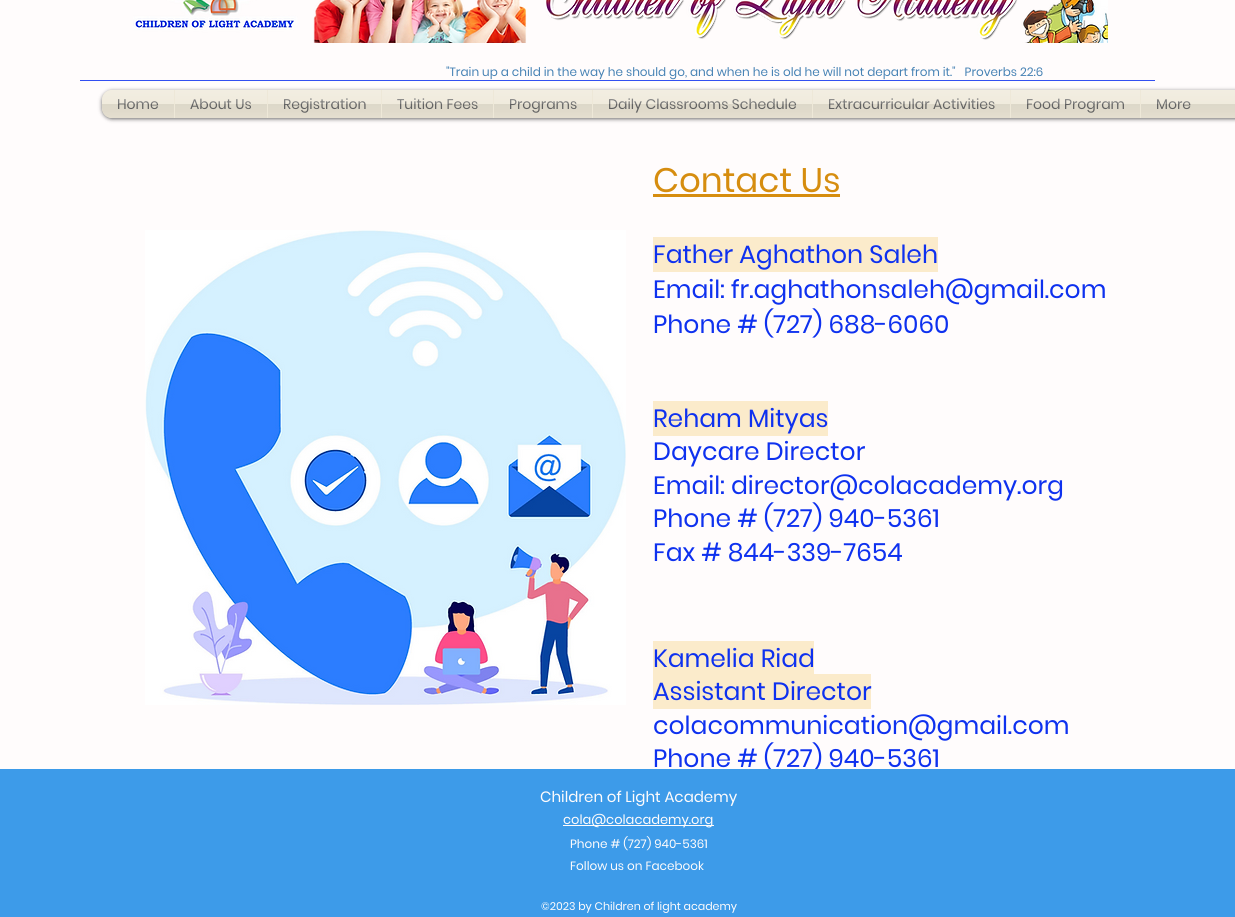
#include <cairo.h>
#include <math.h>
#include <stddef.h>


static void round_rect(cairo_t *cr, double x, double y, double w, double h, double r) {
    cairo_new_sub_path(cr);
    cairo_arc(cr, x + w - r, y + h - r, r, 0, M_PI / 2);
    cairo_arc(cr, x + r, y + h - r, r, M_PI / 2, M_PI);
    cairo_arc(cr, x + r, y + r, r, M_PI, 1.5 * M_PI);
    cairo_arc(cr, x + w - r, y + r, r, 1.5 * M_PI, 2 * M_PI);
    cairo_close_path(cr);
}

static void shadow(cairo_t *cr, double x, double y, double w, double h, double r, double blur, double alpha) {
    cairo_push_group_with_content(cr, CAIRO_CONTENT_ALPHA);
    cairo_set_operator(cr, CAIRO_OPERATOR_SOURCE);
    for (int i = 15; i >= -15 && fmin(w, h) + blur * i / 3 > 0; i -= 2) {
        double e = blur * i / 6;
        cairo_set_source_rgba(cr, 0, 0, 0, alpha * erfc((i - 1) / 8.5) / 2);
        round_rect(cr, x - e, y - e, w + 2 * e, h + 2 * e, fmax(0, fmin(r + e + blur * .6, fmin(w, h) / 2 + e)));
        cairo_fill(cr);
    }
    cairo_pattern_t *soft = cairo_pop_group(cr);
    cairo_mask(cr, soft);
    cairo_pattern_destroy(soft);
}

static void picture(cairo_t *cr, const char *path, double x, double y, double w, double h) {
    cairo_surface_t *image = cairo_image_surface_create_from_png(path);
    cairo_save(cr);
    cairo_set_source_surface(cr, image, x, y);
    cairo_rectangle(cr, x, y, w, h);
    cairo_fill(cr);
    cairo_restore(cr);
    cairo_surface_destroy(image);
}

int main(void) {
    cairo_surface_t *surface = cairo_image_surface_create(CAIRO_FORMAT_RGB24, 1235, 917);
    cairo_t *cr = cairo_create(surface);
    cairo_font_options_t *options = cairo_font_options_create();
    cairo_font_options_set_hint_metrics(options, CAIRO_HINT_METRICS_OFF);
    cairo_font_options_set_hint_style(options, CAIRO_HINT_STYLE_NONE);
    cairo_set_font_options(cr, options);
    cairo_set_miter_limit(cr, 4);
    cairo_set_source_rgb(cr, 1, 0.988, 0.988);
    cairo_paint(cr);
    picture(cr, "img1.png", 133, 0, 975, 43);
    cairo_select_font_face(cr, "Poppins", CAIRO_FONT_SLANT_NORMAL, CAIRO_FONT_WEIGHT_NORMAL);
    cairo_set_font_size(cr, 12);
    cairo_set_source_rgb(cr, 0.275, 0.51, 0.706);
    cairo_move_to(cr, 446, 76);
    cairo_show_text(cr, "\"Train up a child in the way he should go, and when he is old he will not depart from it.\"   Proverbs 22:6");
    cairo_set_source_rgb(cr, 0.196, 0.31, 0.945);
    cairo_rectangle(cr, 80, 80, 1075, 1);
    cairo_fill(cr);
    cairo_set_source_rgb(cr, 0, 0, 0);
    shadow(cr, 102, 91, 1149, 28, 10, 2, 0.6);
    cairo_set_source_rgb(cr, 0.933, 0.91, 0.847);
    round_rect(cr, 102, 90, 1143, 28, 10);
    cairo_fill(cr);
    picture(cr, "img2.png", 102, 90, 1133, 28);
    cairo_new_path(cr);
    cairo_move_to(cr, 112, 90);
    cairo_line_to(cr, 174, 90);
    cairo_line_to(cr, 174, 118);
    cairo_line_to(cr, 112, 118);
    cairo_curve_to(cr, 106.5, 118, 102, 113.5, 102, 108);
    cairo_line_to(cr, 102, 100);
    cairo_curve_to(cr, 102, 94.5, 106.5, 90, 112, 90);
    cairo_close_path(cr);
    cairo_fill(cr);
    cairo_set_font_size(cr, 14);
    cairo_set_source_rgb(cr, 0.412, 0.412, 0.412);
    cairo_move_to(cr, 117, 109);
    cairo_show_text(cr, "Home");
    picture(cr, "img3.png", 102, 90, 72, 28);
    cairo_set_source_rgb(cr, 0.933, 0.91, 0.847);
    cairo_rectangle(cr, 174, 90, 1032, 28);
    cairo_fill(cr);
    cairo_set_source_rgb(cr, 0.412, 0.412, 0.412);
    cairo_move_to(cr, 190, 109);
    cairo_show_text(cr, "About Us");
    picture(cr, "img4.png", 175, 90, 92, 28);
    cairo_move_to(cr, 283, 109);
    cairo_show_text(cr, "Registration");
    picture(cr, "img5.png", 268, 90, 113, 28);
    cairo_move_to(cr, 397, 109);
    cairo_show_text(cr, "Tuition Fees");
    picture(cr, "img6.png", 382, 90, 111, 28);
    cairo_move_to(cr, 509, 109);
    cairo_show_text(cr, "Programs");
    picture(cr, "img7.png", 494, 90, 98, 28);
    cairo_move_to(cr, 608, 109);
    cairo_show_text(cr, "Daily Classrooms Schedule");
    picture(cr, "img8.png", 593, 90, 219, 28);
    cairo_move_to(cr, 828, 109);
    cairo_show_text(cr, "Extracurricular Activities");
    picture(cr, "img9.png", 813, 90, 197, 28);
    cairo_move_to(cr, 1026, 109);
    cairo_show_text(cr, "Food Program");
    picture(cr, "img10.png", 1011, 90, 129, 28);
    cairo_move_to(cr, 1156, 109);
    cairo_show_text(cr, "More");
    picture(cr, "img11.png", 1141, 90, 65, 28);
    cairo_set_font_size(cr, 34);
    cairo_set_source_rgb(cr, 0.839, 0.553, 0.059);
    cairo_move_to(cr, 653, 192);
    cairo_show_text(cr, "Contact Us");
    cairo_rectangle(cr, 653, 194, 187, 3);
    cairo_fill(cr);
    picture(cr, "img12.png", 145, 230, 481, 475);
    cairo_set_source_rgb(cr, 0.984, 0.918, 0.796);
    cairo_rectangle(cr, 653, 237, 285, 35);
    cairo_fill(cr);
    cairo_set_font_size(cr, 25);
    cairo_set_source_rgb(cr, 0.055, 0.192, 0.937);
    cairo_move_to(cr, 653, 263);
    cairo_show_text(cr, "Father Aghathon Saleh");
    cairo_move_to(cr, 653, 298);
    cairo_show_text(cr, "Email: fr.aghathonsaleh@gmail.com");
    cairo_move_to(cr, 653, 333);
    cairo_show_text(cr, "Phone # (727) 688-6060");
    cairo_set_source_rgb(cr, 0.984, 0.918, 0.796);
    cairo_rectangle(cr, 653, 401, 175, 35);
    cairo_fill(cr);
    cairo_set_source_rgb(cr, 0.055, 0.192, 0.937);
    cairo_move_to(cr, 653, 427);
    cairo_show_text(cr, "Reham Mityas");
    cairo_move_to(cr, 653, 460);
    cairo_show_text(cr, "Daycare Director");
    cairo_move_to(cr, 653, 494);
    cairo_show_text(cr, "Email: director@colacademy.org");
    cairo_move_to(cr, 653, 527);
    cairo_show_text(cr, "Phone # (727) 940-5361");
    cairo_move_to(cr, 653, 561);
    cairo_show_text(cr, "Fax # 844-339-7654");
    cairo_set_source_rgb(cr, 0.984, 0.918, 0.796);
    cairo_rectangle(cr, 653, 641, 161, 33);
    cairo_fill(cr);
    cairo_set_source_rgb(cr, 0.055, 0.192, 0.937);
    cairo_move_to(cr, 653, 667);
    cairo_show_text(cr, "Kamelia Riad");
    cairo_set_source_rgb(cr, 0.984, 0.918, 0.796);
    cairo_rectangle(cr, 653, 674, 218, 35);
    cairo_fill(cr);
    cairo_set_source_rgb(cr, 0.055, 0.192, 0.937);
    cairo_move_to(cr, 653, 700);
    cairo_show_text(cr, "Assistant Director");
    cairo_move_to(cr, 653, 734);
    cairo_show_text(cr, "colacommunication@gmail.com");
    cairo_move_to(cr, 653, 767);
    cairo_show_text(cr, "Phone # (727) 940-5361");
    cairo_set_source_rgb(cr, 0.239, 0.608, 0.914);
    cairo_rectangle(cr, 0, 769, 1235, 148);
    cairo_fill(cr);
    cairo_set_font_size(cr, 15);
    cairo_set_source_rgb(cr, 1, 0.988, 0.988);
    cairo_move_to(cr, 540, 802);
    cairo_show_text(cr, "Children of Light Academy");
    cairo_rectangle(cr, 563, 825, 151, 1);
    cairo_fill(cr);
    cairo_set_font_size(cr, 13);
    cairo_move_to(cr, 563, 824);
    cairo_show_text(cr, "cola@colacademy.org");
    cairo_set_font_size(cr, 12);
    cairo_move_to(cr, 570, 848);
    cairo_show_text(cr, "Phone # (727) 940-5361");
    cairo_move_to(cr, 570, 870);
    cairo_show_text(cr, "Follow us on Facebook");
    cairo_set_font_size(cr, 11);
    cairo_move_to(cr, 541, 910);
    cairo_show_text(cr, "©2023 by Children of light academy");
    cairo_surface_write_to_png(surface, "page.png");
    cairo_font_options_destroy(options);
    cairo_destroy(cr);
    cairo_surface_destroy(surface);
    return 0;
}
